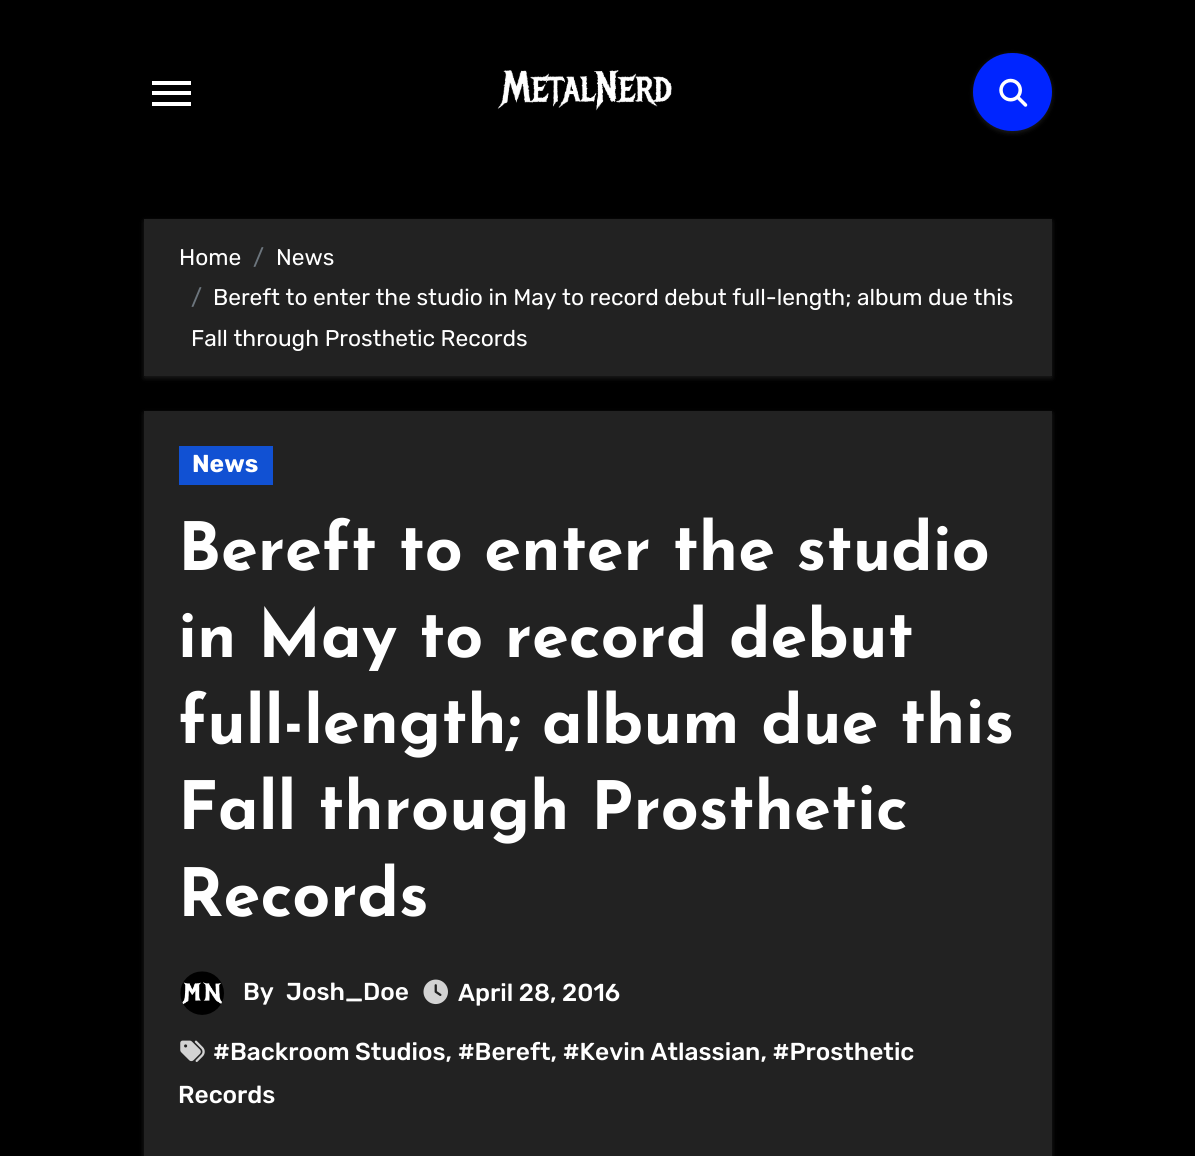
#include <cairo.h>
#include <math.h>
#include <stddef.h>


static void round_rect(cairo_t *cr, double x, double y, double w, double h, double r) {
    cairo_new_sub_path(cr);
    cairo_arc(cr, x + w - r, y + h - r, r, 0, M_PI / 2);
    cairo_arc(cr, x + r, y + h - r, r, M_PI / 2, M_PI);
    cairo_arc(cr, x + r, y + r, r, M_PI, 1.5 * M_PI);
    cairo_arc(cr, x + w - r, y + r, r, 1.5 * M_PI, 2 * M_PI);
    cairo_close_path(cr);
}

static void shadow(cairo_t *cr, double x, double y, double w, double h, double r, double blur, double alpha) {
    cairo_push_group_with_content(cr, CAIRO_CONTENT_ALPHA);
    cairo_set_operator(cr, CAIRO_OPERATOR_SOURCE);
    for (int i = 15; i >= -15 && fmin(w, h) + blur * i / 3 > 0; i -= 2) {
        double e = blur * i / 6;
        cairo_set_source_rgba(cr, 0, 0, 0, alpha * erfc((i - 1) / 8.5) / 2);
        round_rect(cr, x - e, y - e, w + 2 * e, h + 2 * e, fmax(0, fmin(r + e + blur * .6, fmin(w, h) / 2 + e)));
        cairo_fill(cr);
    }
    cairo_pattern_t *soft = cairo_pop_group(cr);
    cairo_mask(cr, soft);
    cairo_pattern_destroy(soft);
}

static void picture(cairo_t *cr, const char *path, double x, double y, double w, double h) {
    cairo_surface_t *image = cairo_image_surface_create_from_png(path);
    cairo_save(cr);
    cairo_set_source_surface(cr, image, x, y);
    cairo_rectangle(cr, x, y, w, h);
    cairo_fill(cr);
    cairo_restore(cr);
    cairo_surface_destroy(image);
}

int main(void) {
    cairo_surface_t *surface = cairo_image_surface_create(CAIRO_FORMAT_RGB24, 1195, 1156);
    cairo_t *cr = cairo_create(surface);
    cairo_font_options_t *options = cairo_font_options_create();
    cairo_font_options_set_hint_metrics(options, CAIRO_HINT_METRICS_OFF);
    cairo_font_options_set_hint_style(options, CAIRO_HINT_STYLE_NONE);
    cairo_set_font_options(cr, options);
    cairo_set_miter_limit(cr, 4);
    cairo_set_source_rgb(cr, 0, 0, 0);
    cairo_paint(cr);
    cairo_set_source_rgb(cr, 1, 1, 1);
    cairo_rectangle(cr, 152, 81, 39, 4);
    cairo_fill(cr);
    cairo_rectangle(cr, 152, 91, 39, 4);
    cairo_fill(cr);
    cairo_rectangle(cr, 152, 102, 39, 4);
    cairo_fill(cr);
    picture(cr, "img1.png", 497, 70, 175, 41);
    cairo_set_source_rgb(cr, 0.725, 0.725, 0.725);
    shadow(cr, 973, 54, 79, 79, 39.5, 2.5, 0.15);
    cairo_set_source_rgb(cr, 0, 0.145, 1);
    round_rect(cr, 973, 53, 79, 78, 39);
    cairo_fill(cr);
    picture(cr, "img2.png", 999, 78, 29, 29);
    cairo_set_source_rgb(cr, 0.725, 0.725, 0.725);
    shadow(cr, 144, 221, 908, 157, 0, 2.5, 0.15);
    cairo_set_source_rgb(cr, 0.133, 0.133, 0.133);
    cairo_rectangle(cr, 144, 219, 908, 157);
    cairo_fill(cr);
    cairo_select_font_face(cr, "Rubik Light", CAIRO_FONT_SLANT_NORMAL, CAIRO_FONT_WEIGHT_NORMAL);
    cairo_set_font_size(cr, 22.75);
    cairo_set_source_rgb(cr, 1, 1, 1);
    cairo_move_to(cr, 179, 265);
    cairo_show_text(cr, "Home");
    cairo_set_source_rgb(cr, 0.424, 0.459, 0.49);
    cairo_move_to(cr, 253, 265);
    cairo_show_text(cr, "/");
    cairo_set_source_rgb(cr, 1, 1, 1);
    cairo_move_to(cr, 276, 265);
    cairo_show_text(cr, "News");
    cairo_set_source_rgb(cr, 0.424, 0.459, 0.49);
    cairo_move_to(cr, 191, 305);
    cairo_show_text(cr, "/");
    cairo_set_source_rgb(cr, 1, 1, 1);
    cairo_move_to(cr, 213, 305);
    cairo_show_text(cr, "Bereft to enter the studio in May to record debut full-length; album due this");
    cairo_move_to(cr, 191, 346);
    cairo_show_text(cr, "Fall through Prosthetic Records");
    cairo_set_source_rgb(cr, 0.725, 0.725, 0.725);
    shadow(cr, 144, 413, 908, 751, 0, 2.5, 0.15);
    cairo_set_source_rgb(cr, 0.133, 0.133, 0.133);
    cairo_rectangle(cr, 144, 411, 908, 745);
    cairo_fill(cr);
    cairo_set_source_rgb(cr, 0.067, 0.318, 0.827);
    cairo_rectangle(cr, 179, 446, 94, 39);
    cairo_fill(cr);
    cairo_select_font_face(cr, "Rubik", CAIRO_FONT_SLANT_NORMAL, CAIRO_FONT_WEIGHT_BOLD);
    cairo_set_font_size(cr, 24.5);
    cairo_set_source_rgb(cr, 1, 1, 1);
    cairo_move_to(cr, 192, 472);
    cairo_show_text(cr, "News");
    cairo_select_font_face(cr, "Josefin Sans", CAIRO_FONT_SLANT_NORMAL, CAIRO_FONT_WEIGHT_BOLD);
    cairo_set_font_size(cr, 66.5);
    cairo_move_to(cr, 178, 570);
    cairo_show_text(cr, "Bereft to enter the studio");
    cairo_move_to(cr, 178, 657);
    cairo_show_text(cr, "in May to record debut");
    cairo_move_to(cr, 178, 743);
    cairo_show_text(cr, "full-length; album due this");
    cairo_move_to(cr, 178, 829);
    cairo_show_text(cr, "Fall through Prosthetic");
    cairo_move_to(cr, 178, 916);
    cairo_show_text(cr, "Records");
    picture(cr, "img3.png", 180, 971, 44, 44);
    cairo_select_font_face(cr, "Rubik Medium", CAIRO_FONT_SLANT_NORMAL, CAIRO_FONT_WEIGHT_NORMAL);
    cairo_set_font_size(cr, 24.5);
    cairo_move_to(cr, 243, 1000);
    cairo_show_text(cr, "By");
    cairo_move_to(cr, 286, 1000);
    cairo_show_text(cr, "Josh_Doe");
    picture(cr, "img4.png", 423, 979, 25, 26);
    cairo_move_to(cr, 458, 1001);
    cairo_show_text(cr, "April 28, 2016");
    picture(cr, "img5.png", 180, 1040, 25, 22);
    cairo_move_to(cr, 213, 1060);
    cairo_show_text(cr, "#Backroom Studios, #Bereft, #Kevin Atlassian, #Prosthetic");
    cairo_move_to(cr, 178, 1103);
    cairo_show_text(cr, "Records");
    cairo_surface_write_to_png(surface, "page.png");
    cairo_font_options_destroy(options);
    cairo_destroy(cr);
    cairo_surface_destroy(surface);
    return 0;
}
